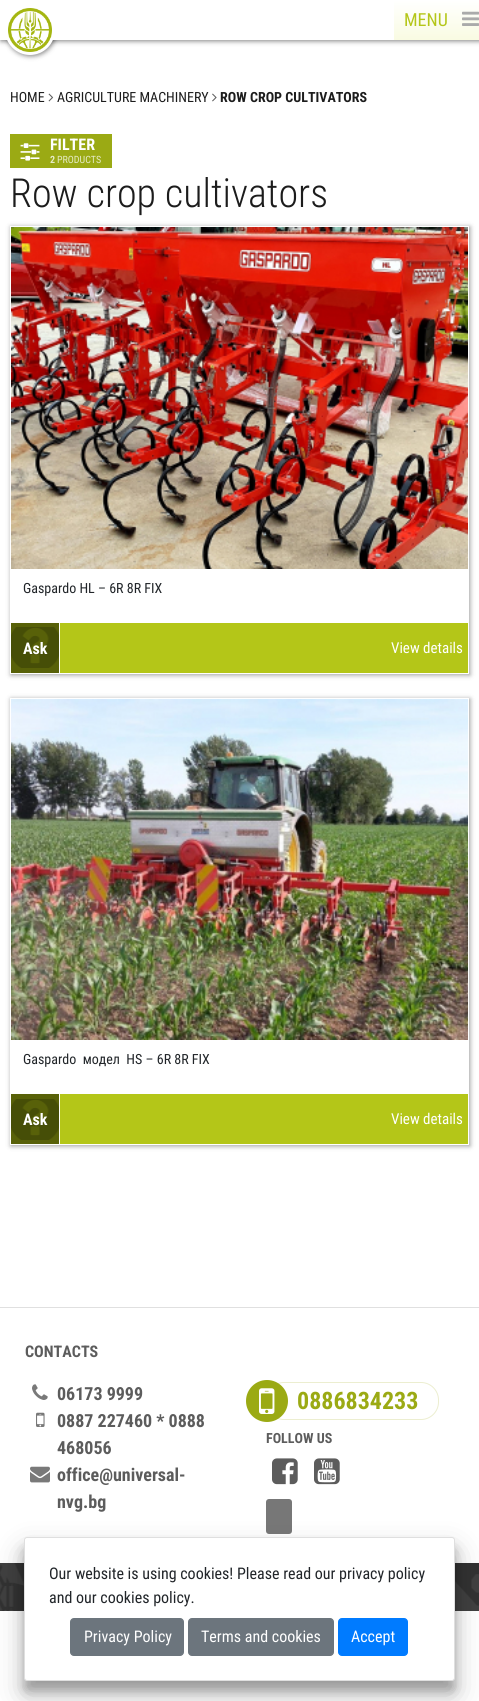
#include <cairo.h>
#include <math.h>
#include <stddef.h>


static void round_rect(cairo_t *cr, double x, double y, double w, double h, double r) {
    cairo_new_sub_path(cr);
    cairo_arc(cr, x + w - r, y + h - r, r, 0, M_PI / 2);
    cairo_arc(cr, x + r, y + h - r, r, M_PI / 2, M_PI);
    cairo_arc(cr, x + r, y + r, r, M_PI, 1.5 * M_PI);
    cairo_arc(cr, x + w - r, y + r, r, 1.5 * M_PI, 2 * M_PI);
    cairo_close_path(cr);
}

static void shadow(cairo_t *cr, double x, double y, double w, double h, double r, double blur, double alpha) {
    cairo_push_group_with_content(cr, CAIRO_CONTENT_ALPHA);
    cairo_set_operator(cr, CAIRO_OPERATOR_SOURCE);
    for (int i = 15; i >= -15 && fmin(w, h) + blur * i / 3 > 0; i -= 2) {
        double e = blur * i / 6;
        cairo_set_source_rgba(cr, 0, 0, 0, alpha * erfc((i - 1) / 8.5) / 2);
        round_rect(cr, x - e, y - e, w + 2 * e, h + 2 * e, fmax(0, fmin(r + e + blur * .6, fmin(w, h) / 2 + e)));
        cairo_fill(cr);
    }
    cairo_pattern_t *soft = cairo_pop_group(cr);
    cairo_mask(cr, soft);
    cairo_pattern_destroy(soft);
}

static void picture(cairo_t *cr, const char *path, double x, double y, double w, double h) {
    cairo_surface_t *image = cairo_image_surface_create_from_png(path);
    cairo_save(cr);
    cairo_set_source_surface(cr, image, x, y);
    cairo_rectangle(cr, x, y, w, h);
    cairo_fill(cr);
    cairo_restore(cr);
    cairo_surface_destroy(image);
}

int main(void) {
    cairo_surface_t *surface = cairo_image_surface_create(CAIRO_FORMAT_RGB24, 479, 1701);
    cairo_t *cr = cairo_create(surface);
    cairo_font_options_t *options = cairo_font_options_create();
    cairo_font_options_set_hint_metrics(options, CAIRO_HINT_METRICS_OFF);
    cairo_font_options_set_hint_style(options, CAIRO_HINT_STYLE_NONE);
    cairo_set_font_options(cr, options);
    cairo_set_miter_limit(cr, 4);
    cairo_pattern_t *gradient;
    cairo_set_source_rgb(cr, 1, 1, 1);
    cairo_paint(cr);
    cairo_set_source_rgb(cr, 0, 0, 0);
    shadow(cr, 6, 6, 50, 50, 25, 2.5, 0.5);
    shadow(cr, 1, 1, 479, 40, 0, 2.5, 0.5);
    cairo_set_source_rgb(cr, 1, 1, 1);
    cairo_rectangle(cr, 0, 0, 394, 40);
    cairo_fill(cr);
    cairo_arc(cr, 30, 30, 25, 0, 2 * M_PI);
    cairo_fill(cr);
    picture(cr, "img1.png", 8, 8, 44, 44);
    gradient = cairo_pattern_create_linear(437, 40, 437, 0);
    cairo_pattern_add_color_stop_rgba(gradient, 0, 0.976, 0.984, 0.886, 1);
    cairo_pattern_add_color_stop_rgba(gradient, 1, 1, 1, 1, 1);
    cairo_set_source(cr, gradient);
    cairo_pattern_destroy(gradient);
    cairo_rectangle(cr, 394, 0, 85, 40);
    cairo_fill(cr);
    cairo_select_font_face(cr, "Roboto Condensed", CAIRO_FONT_SLANT_NORMAL, CAIRO_FONT_WEIGHT_NORMAL);
    cairo_set_font_size(cr, 18);
    cairo_set_source_rgb(cr, 0.706, 0.776, 0.094);
    cairo_move_to(cr, 404, 26);
    cairo_show_text(cr, "MENU");
    picture(cr, "img2.png", 462, 11, 17, 15);
    cairo_set_font_size(cr, 14);
    cairo_set_source_rgb(cr, 0.11, 0.11, 0.11);
    cairo_move_to(cr, 10, 102);
    cairo_show_text(cr, "HOME");
    picture(cr, "img3.png", 48, 93, 6, 9);
    cairo_move_to(cr, 57, 102);
    cairo_show_text(cr, "AGRICULTURE MACHINERY");
    picture(cr, "img4.png", 212, 93, 5, 9);
    cairo_select_font_face(cr, "Roboto Condensed", CAIRO_FONT_SLANT_NORMAL, CAIRO_FONT_WEIGHT_BOLD);
    cairo_move_to(cr, 220, 102);
    cairo_show_text(cr, "ROW CROP CULTIVATORS");
    cairo_set_source_rgb(cr, 0.608, 0.667, 0.082);
    cairo_rectangle(cr, 10, 134, 102, 34);
    cairo_fill(cr);
    picture(cr, "img5.png", 20, 143, 20, 18);
    cairo_set_font_size(cr, 16);
    cairo_set_source_rgb(cr, 1, 1, 1);
    cairo_move_to(cr, 50, 150);
    cairo_show_text(cr, "FILTER");
    cairo_set_font_size(cr, 10);
    cairo_set_source_rgb(cr, 0.902, 0.918, 0.773);
    cairo_move_to(cr, 50, 163);
    cairo_show_text(cr, "2");
    cairo_select_font_face(cr, "Roboto Condensed", CAIRO_FONT_SLANT_NORMAL, CAIRO_FONT_WEIGHT_NORMAL);
    cairo_move_to(cr, 57, 163);
    cairo_show_text(cr, "PRODUCTS");
    cairo_select_font_face(cr, "Roboto Condensed Light", CAIRO_FONT_SLANT_NORMAL, CAIRO_FONT_WEIGHT_NORMAL);
    cairo_set_font_size(cr, 40);
    cairo_set_source_rgb(cr, 0.11, 0.11, 0.11);
    cairo_move_to(cr, 10, 207);
    cairo_show_text(cr, "Row crop cultivators");
    cairo_save(cr);
    cairo_set_fill_rule(cr, CAIRO_FILL_RULE_EVEN_ODD);
    cairo_new_path(cr);
    cairo_move_to(cr, 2, 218);
    cairo_line_to(cr, 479, 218);
    cairo_line_to(cr, 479, 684);
    cairo_line_to(cr, 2, 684);
    cairo_close_path(cr);
    cairo_move_to(cr, 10, 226);
    cairo_line_to(cr, 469, 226);
    cairo_line_to(cr, 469, 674);
    cairo_line_to(cr, 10, 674);
    cairo_close_path(cr);
    cairo_clip(cr);
    cairo_set_source_rgb(cr, 0, 0, 0);
    shadow(cr, 11, 227, 459, 448, 0, 2.5, 0.4);
    cairo_restore(cr);
    picture(cr, "img6.png", 11, 227, 457, 342);
    cairo_select_font_face(cr, "Roboto Condensed", CAIRO_FONT_SLANT_NORMAL, CAIRO_FONT_WEIGHT_NORMAL);
    cairo_set_font_size(cr, 14);
    cairo_set_source_rgb(cr, 0.129, 0.145, 0.161);
    cairo_move_to(cr, 23, 593);
    cairo_show_text(cr, "Gaspardo HL – 6R 8R FIX");
    cairo_set_source_rgb(cr, 0.706, 0.776, 0.094);
    cairo_rectangle(cr, 60, 623, 408, 50);
    cairo_fill(cr);
    cairo_set_source_rgb(cr, 0.345, 0.38, 0.035);
    cairo_rectangle(cr, 11, 623, 48, 50);
    cairo_fill(cr);
    picture(cr, "img7.png", 11, 627, 48, 41);
    cairo_select_font_face(cr, "Roboto Condensed", CAIRO_FONT_SLANT_NORMAL, CAIRO_FONT_WEIGHT_BOLD);
    cairo_set_font_size(cr, 16);
    cairo_set_source_rgb(cr, 1, 1, 1);
    cairo_move_to(cr, 23, 654);
    cairo_show_text(cr, "Ask");
    cairo_select_font_face(cr, "Roboto Condensed", CAIRO_FONT_SLANT_NORMAL, CAIRO_FONT_WEIGHT_NORMAL);
    cairo_set_font_size(cr, 15);
    cairo_move_to(cr, 391, 653);
    cairo_show_text(cr, "View details");
    cairo_save(cr);
    cairo_set_fill_rule(cr, CAIRO_FILL_RULE_EVEN_ODD);
    cairo_new_path(cr);
    cairo_move_to(cr, 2, 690);
    cairo_line_to(cr, 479, 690);
    cairo_line_to(cr, 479, 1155);
    cairo_line_to(cr, 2, 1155);
    cairo_close_path(cr);
    cairo_move_to(cr, 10, 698);
    cairo_line_to(cr, 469, 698);
    cairo_line_to(cr, 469, 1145);
    cairo_line_to(cr, 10, 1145);
    cairo_close_path(cr);
    cairo_clip(cr);
    cairo_set_source_rgb(cr, 0, 0, 0);
    shadow(cr, 11, 699, 459, 447, 0, 2.5, 0.4);
    cairo_restore(cr);
    picture(cr, "img8.png", 11, 699, 457, 341);
    cairo_set_font_size(cr, 14);
    cairo_set_source_rgb(cr, 0.129, 0.145, 0.161);
    cairo_move_to(cr, 23, 1064);
    cairo_show_text(cr, "Gaspardo  модел  HS – 6R 8R FIX");
    cairo_set_source_rgb(cr, 0.706, 0.776, 0.094);
    cairo_rectangle(cr, 60, 1094, 408, 50);
    cairo_fill(cr);
    cairo_set_source_rgb(cr, 0.345, 0.38, 0.035);
    cairo_rectangle(cr, 11, 1094, 48, 50);
    cairo_fill(cr);
    picture(cr, "img7.png", 11, 1099, 48, 41);
    cairo_select_font_face(cr, "Roboto Condensed", CAIRO_FONT_SLANT_NORMAL, CAIRO_FONT_WEIGHT_BOLD);
    cairo_set_font_size(cr, 16);
    cairo_set_source_rgb(cr, 1, 1, 1);
    cairo_move_to(cr, 23, 1125);
    cairo_show_text(cr, "Ask");
    cairo_select_font_face(cr, "Roboto Condensed", CAIRO_FONT_SLANT_NORMAL, CAIRO_FONT_WEIGHT_NORMAL);
    cairo_set_font_size(cr, 15);
    cairo_move_to(cr, 391, 1124);
    cairo_show_text(cr, "View details");
    cairo_set_source_rgb(cr, 0.878, 0.878, 0.878);
    cairo_rectangle(cr, 0, 1307, 479, 1);
    cairo_fill(cr);
    cairo_select_font_face(cr, "Roboto Condensed", CAIRO_FONT_SLANT_NORMAL, CAIRO_FONT_WEIGHT_BOLD);
    cairo_set_font_size(cr, 16);
    cairo_set_source_rgb(cr, 0.361, 0.361, 0.361);
    cairo_move_to(cr, 25, 1357);
    cairo_show_text(cr, "CONTACTS");
    picture(cr, "img9.png", 32, 1384, 16, 16);
    cairo_set_font_size(cr, 18);
    cairo_move_to(cr, 57, 1400);
    cairo_show_text(cr, "06173 9999");
    picture(cr, "img10.png", 36, 1412, 9, 15);
    cairo_move_to(cr, 57, 1427);
    cairo_show_text(cr, "0887 227460 * 0888");
    cairo_move_to(cr, 57, 1454);
    cairo_show_text(cr, "468056");
    picture(cr, "img11.png", 30, 1466, 20, 17);
    cairo_move_to(cr, 57, 1481);
    cairo_show_text(cr, "office@universal-");
    cairo_move_to(cr, 57, 1508);
    cairo_show_text(cr, "nvg.bg");
    round_rect(cr, 266.5, 1382.5, 172, 37, 17.5);
    cairo_set_source_rgb(cr, 0.922, 0.933, 0.816);
    cairo_set_line_width(cr, 1);
    cairo_stroke(cr);
    cairo_set_source_rgb(cr, 0.608, 0.667, 0.082);
    cairo_arc(cr, 267, 1401, 21, 0, 2 * M_PI);
    cairo_fill(cr);
    picture(cr, "img12.png", 259, 1388, 16, 26);
    cairo_set_font_size(cr, 24);
    cairo_move_to(cr, 297, 1409);
    cairo_show_text(cr, "0886834233");
    cairo_set_font_size(cr, 14);
    cairo_set_source_rgb(cr, 0.361, 0.361, 0.361);
    cairo_move_to(cr, 266, 1443);
    cairo_show_text(cr, "FOLLOW US");
    picture(cr, "img13.png", 272, 1458, 26, 27);
    picture(cr, "img14.png", 314, 1458, 26, 27);
    cairo_set_source_rgb(cr, 0.467, 0.467, 0.467);
    round_rect(cr, 266, 1499, 26, 35, 3);
    cairo_fill(cr);
    picture(cr, "img15.png", 0, 1563, 479, 48);
    cairo_set_source_rgb(cr, 0, 0, 0);
    shadow(cr, 24, 1547, 431, 144, 3, 5, 0.22);
    shadow(cr, 24, 1551, 431, 144, 3, 14, 0.25);
    cairo_set_source_rgb(cr, 1, 1, 1);
    round_rect(cr, 24.5, 1537.5, 430, 143, 2.5);
    cairo_fill_preserve(cr);
    cairo_set_source_rgb(cr, 0.875, 0.875, 0.875);
    cairo_stroke(cr);
    cairo_select_font_face(cr, "Roboto Condensed", CAIRO_FONT_SLANT_NORMAL, CAIRO_FONT_WEIGHT_NORMAL);
    cairo_set_font_size(cr, 16);
    cairo_set_source_rgb(cr, 0.129, 0.145, 0.161);
    cairo_move_to(cr, 49, 1579);
    cairo_show_text(cr, "Our website is using cookies! Please read our privacy policy");
    cairo_move_to(cr, 49, 1603);
    cairo_show_text(cr, "and our cookies policy.");
    cairo_set_source_rgb(cr, 0.424, 0.459, 0.49);
    round_rect(cr, 70.5, 1618.5, 113, 37, 3.5);
    cairo_fill_preserve(cr);
    cairo_stroke(cr);
    cairo_set_source_rgb(cr, 1, 1, 1);
    cairo_move_to(cr, 84, 1642);
    cairo_show_text(cr, "Privacy Policy");
    cairo_set_source_rgb(cr, 0.424, 0.459, 0.49);
    round_rect(cr, 188.5, 1618.5, 145, 37, 3.5);
    cairo_fill_preserve(cr);
    cairo_stroke(cr);
    cairo_set_source_rgb(cr, 1, 1, 1);
    cairo_move_to(cr, 201, 1642);
    cairo_show_text(cr, "Terms and cookies");
    cairo_set_source_rgb(cr, 0, 0.482, 1);
    round_rect(cr, 338.5, 1618.5, 69, 37, 3.5);
    cairo_fill_preserve(cr);
    cairo_stroke(cr);
    cairo_set_source_rgb(cr, 1, 1, 1);
    cairo_move_to(cr, 351, 1642);
    cairo_show_text(cr, "Accept");
    cairo_surface_write_to_png(surface, "page.png");
    cairo_font_options_destroy(options);
    cairo_destroy(cr);
    cairo_surface_destroy(surface);
    return 0;
}
